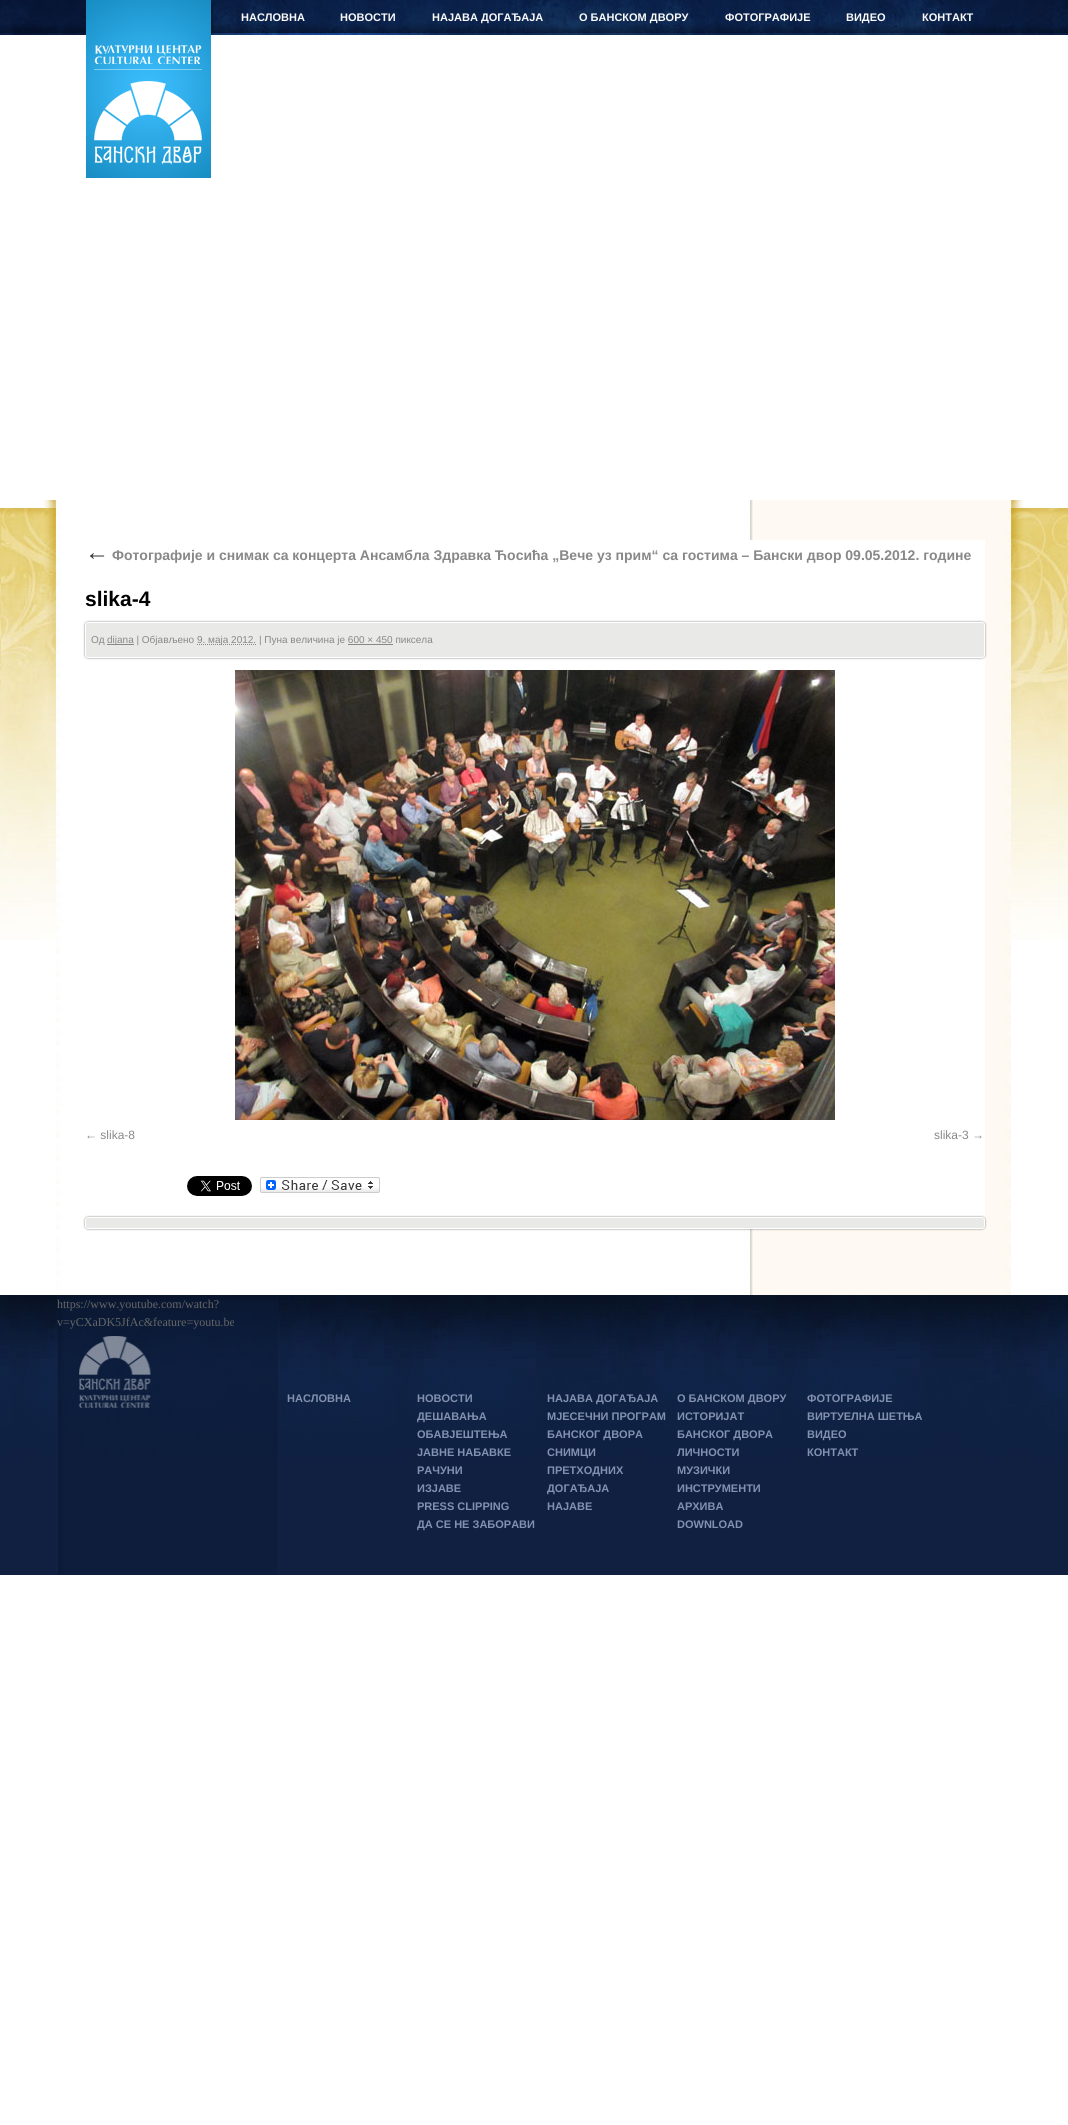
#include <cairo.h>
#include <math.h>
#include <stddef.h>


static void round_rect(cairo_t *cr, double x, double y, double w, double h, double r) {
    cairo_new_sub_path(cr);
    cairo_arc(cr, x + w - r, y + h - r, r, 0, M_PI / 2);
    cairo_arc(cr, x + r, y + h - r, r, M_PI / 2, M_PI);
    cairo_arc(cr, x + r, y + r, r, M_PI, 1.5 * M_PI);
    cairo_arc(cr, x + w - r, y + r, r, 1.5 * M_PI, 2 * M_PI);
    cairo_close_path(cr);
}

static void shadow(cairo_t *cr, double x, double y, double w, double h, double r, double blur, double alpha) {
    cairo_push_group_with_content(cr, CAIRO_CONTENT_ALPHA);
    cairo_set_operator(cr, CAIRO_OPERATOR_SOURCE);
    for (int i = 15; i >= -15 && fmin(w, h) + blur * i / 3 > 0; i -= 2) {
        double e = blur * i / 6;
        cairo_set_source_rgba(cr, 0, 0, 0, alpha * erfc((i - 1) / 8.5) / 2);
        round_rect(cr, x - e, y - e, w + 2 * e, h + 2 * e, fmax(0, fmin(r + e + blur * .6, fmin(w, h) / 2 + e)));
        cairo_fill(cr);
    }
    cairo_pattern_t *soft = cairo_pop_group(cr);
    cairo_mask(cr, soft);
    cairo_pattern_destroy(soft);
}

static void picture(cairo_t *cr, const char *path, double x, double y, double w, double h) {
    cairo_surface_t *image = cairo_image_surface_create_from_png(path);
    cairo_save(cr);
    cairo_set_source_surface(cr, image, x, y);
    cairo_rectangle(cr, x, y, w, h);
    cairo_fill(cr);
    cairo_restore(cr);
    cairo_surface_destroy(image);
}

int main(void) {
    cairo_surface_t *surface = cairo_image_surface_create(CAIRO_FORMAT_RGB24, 1068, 2125);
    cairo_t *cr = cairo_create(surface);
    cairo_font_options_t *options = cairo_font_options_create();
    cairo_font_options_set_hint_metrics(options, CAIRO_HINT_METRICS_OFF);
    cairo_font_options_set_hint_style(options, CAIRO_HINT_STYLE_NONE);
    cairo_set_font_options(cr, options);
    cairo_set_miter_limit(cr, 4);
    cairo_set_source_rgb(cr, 1, 1, 1);
    cairo_paint(cr);
    picture(cr, "img1.png", 0, 0, 1068, 940);
    picture(cr, "img2.png", 86, 0, 125, 178);
    cairo_select_font_face(cr, "Liberation Sans", CAIRO_FONT_SLANT_NORMAL, CAIRO_FONT_WEIGHT_BOLD);
    cairo_set_font_size(cr, 11);
    cairo_set_source_rgb(cr, 0.98, 0.98, 0.98);
    cairo_move_to(cr, 241, 21);
    cairo_show_text(cr, "НАСЛОВНА");
    cairo_move_to(cr, 340, 21);
    cairo_show_text(cr, "НОВОСТИ");
    cairo_move_to(cr, 432, 21);
    cairo_show_text(cr, "НАЈАВА ДОГАЂАЈА");
    cairo_move_to(cr, 579, 21);
    cairo_show_text(cr, "О БАНСКОМ ДВОРУ");
    cairo_move_to(cr, 725, 21);
    cairo_show_text(cr, "ФОТОГРАФИЈЕ");
    cairo_move_to(cr, 846, 21);
    cairo_show_text(cr, "ВИДЕО");
    cairo_move_to(cr, 922, 21);
    cairo_show_text(cr, "КОНТАКТ");
    picture(cr, "img3.png", 43, 500, 981, 222);
    picture(cr, "img4.png", 56, 500, 955, 795);
    cairo_set_source_rgb(cr, 1, 1, 1);
    cairo_rectangle(cr, 744, 540, 241, 689);
    cairo_fill(cr);
    cairo_select_font_face(cr, "Liberation Serif", CAIRO_FONT_SLANT_ITALIC, CAIRO_FONT_WEIGHT_NORMAL);
    cairo_set_font_size(cr, 24);
    cairo_set_source_rgb(cr, 0.2, 0.2, 0.2);
    cairo_move_to(cr, 85, 560);
    cairo_show_text(cr, "←");
    cairo_select_font_face(cr, "Liberation Sans", CAIRO_FONT_SLANT_NORMAL, CAIRO_FONT_WEIGHT_BOLD);
    cairo_set_font_size(cr, 14);
    cairo_set_source_rgb(cr, 0.533, 0.533, 0.533);
    cairo_move_to(cr, 112, 560);
    cairo_show_text(cr, "Фотографије и снимак са концерта Ансамбла Здравка Ћосића „Вече уз прим“ са гостима – Бански двор 09.05.2012. године");
    cairo_set_font_size(cr, 21);
    cairo_set_source_rgb(cr, 0, 0, 0);
    cairo_move_to(cr, 85, 606);
    cairo_show_text(cr, "slika-4");
    cairo_set_source_rgb(cr, 0, 0, 0);
    shadow(cr, 85, 622, 900, 36, 3, 1, 0.5);
    cairo_set_source_rgb(cr, 0.914, 0.914, 0.91);
    round_rect(cr, 85.5, 622.5, 899, 35, 2.5);
    cairo_fill_preserve(cr);
    cairo_set_source_rgb(cr, 1, 1, 1);
    cairo_set_line_width(cr, 1);
    cairo_stroke(cr);
    cairo_select_font_face(cr, "Liberation Sans", CAIRO_FONT_SLANT_NORMAL, CAIRO_FONT_WEIGHT_NORMAL);
    cairo_set_font_size(cr, 10);
    cairo_set_source_rgb(cr, 0.533, 0.533, 0.533);
    cairo_move_to(cr, 91, 643);
    cairo_show_text(cr, "Од");
    cairo_rectangle(cr, 107, 644, 27, 1);
    cairo_fill(cr);
    cairo_move_to(cr, 107, 643);
    cairo_show_text(cr, "dijana | Објављено");
    cairo_new_path(cr);
    cairo_move_to(cr, 197, 644.5);
    cairo_line_to(cr, 256, 644.5);
    cairo_set_dash(cr, (double[]){1, 1}, 2, 0);
    cairo_stroke(cr);
    cairo_move_to(cr, 197, 643);
    cairo_show_text(cr, "9. маја 2012. | Пуна величина је 600 × 450 пиксела");
    cairo_rectangle(cr, 348, 644, 45, 1);
    cairo_fill(cr);
    picture(cr, "img5.png", 235, 670, 600, 450);
    cairo_set_font_size(cr, 12);
    cairo_move_to(cr, 85, 1139);
    cairo_show_text(cr, "← slika-8");
    cairo_move_to(cr, 934, 1139);
    cairo_show_text(cr, "slika-3 →");
    picture(cr, "img6.png", 187, 1176, 65, 20);
    picture(cr, "img7.png", 260, 1177, 120, 16);
    cairo_set_source_rgb(cr, 0, 0, 0);
    shadow(cr, 85, 1217, 900, 12, 3, 1, 0.5);
    cairo_set_source_rgb(cr, 0.914, 0.914, 0.91);
    round_rect(cr, 85.5, 1217.5, 899, 11, 2.5);
    cairo_fill_preserve(cr);
    cairo_set_source_rgb(cr, 1, 1, 1);
    cairo_set_dash(cr, NULL, 0, 0);
    cairo_stroke(cr);
    picture(cr, "img8.png", 0, 1295, 1068, 280);
    picture(cr, "img9.png", 57, 1295, 222, 280);
    cairo_select_font_face(cr, "Liberation Serif", CAIRO_FONT_SLANT_NORMAL, CAIRO_FONT_WEIGHT_NORMAL);
    cairo_set_source_rgb(cr, 0.4, 0.4, 0.4);
    cairo_move_to(cr, 57, 1308);
    cairo_show_text(cr, "https://www.youtube.com/watch?");
    cairo_move_to(cr, 57, 1326);
    cairo_show_text(cr, "v=yCXaDK5JfAc&feature=youtu.be");
    cairo_select_font_face(cr, "Liberation Sans", CAIRO_FONT_SLANT_NORMAL, CAIRO_FONT_WEIGHT_BOLD);
    cairo_set_font_size(cr, 11);
    cairo_set_source_rgb(cr, 0.51, 0.569, 0.686);
    cairo_move_to(cr, 287, 1402);
    cairo_show_text(cr, "НАСЛОВНА");
    cairo_move_to(cr, 417, 1402);
    cairo_show_text(cr, "НОВОСТИ");
    cairo_move_to(cr, 417, 1420);
    cairo_show_text(cr, "ДЕШАВАЊА");
    cairo_move_to(cr, 417, 1438);
    cairo_show_text(cr, "ОБАВЈЕШТЕЊА");
    cairo_move_to(cr, 417, 1456);
    cairo_show_text(cr, "ЈАВНЕ НАБАВКЕ");
    cairo_move_to(cr, 417, 1474);
    cairo_show_text(cr, "РАЧУНИ");
    cairo_move_to(cr, 417, 1492);
    cairo_show_text(cr, "ИЗЈАВЕ");
    cairo_move_to(cr, 417, 1510);
    cairo_show_text(cr, "PRESS CLIPPING");
    cairo_move_to(cr, 417, 1528);
    cairo_show_text(cr, "ДА СЕ НЕ ЗАБОРАВИ");
    cairo_move_to(cr, 547, 1402);
    cairo_show_text(cr, "НАЈАВА ДОГАЂАЈА");
    cairo_move_to(cr, 547, 1420);
    cairo_show_text(cr, "МЈЕСЕЧНИ ПРОГРАМ");
    cairo_move_to(cr, 547, 1438);
    cairo_show_text(cr, "БАНСКОГ ДВОРА");
    cairo_move_to(cr, 547, 1456);
    cairo_show_text(cr, "СНИМЦИ");
    cairo_move_to(cr, 547, 1474);
    cairo_show_text(cr, "ПРЕТХОДНИХ");
    cairo_move_to(cr, 547, 1492);
    cairo_show_text(cr, "ДОГАЂАЈА");
    cairo_move_to(cr, 547, 1510);
    cairo_show_text(cr, "НАЈАВЕ");
    cairo_move_to(cr, 677, 1402);
    cairo_show_text(cr, "О БАНСКОМ ДВОРУ");
    cairo_move_to(cr, 677, 1420);
    cairo_show_text(cr, "ИСТОРИЈАТ");
    cairo_move_to(cr, 677, 1438);
    cairo_show_text(cr, "БАНСКОГ ДВОРА");
    cairo_move_to(cr, 677, 1456);
    cairo_show_text(cr, "ЛИЧНОСТИ");
    cairo_move_to(cr, 677, 1474);
    cairo_show_text(cr, "МУЗИЧКИ");
    cairo_move_to(cr, 677, 1492);
    cairo_show_text(cr, "ИНСТРУМЕНТИ");
    cairo_move_to(cr, 677, 1510);
    cairo_show_text(cr, "АРХИВА");
    cairo_move_to(cr, 677, 1528);
    cairo_show_text(cr, "DOWNLOAD");
    cairo_move_to(cr, 807, 1402);
    cairo_show_text(cr, "ФОТОГРАФИЈЕ");
    cairo_move_to(cr, 807, 1420);
    cairo_show_text(cr, "ВИРТУЕЛНА ШЕТЊА");
    cairo_move_to(cr, 807, 1438);
    cairo_show_text(cr, "ВИДЕО");
    cairo_move_to(cr, 807, 1456);
    cairo_show_text(cr, "КОНТАКТ");
    cairo_surface_write_to_png(surface, "page.png");
    cairo_font_options_destroy(options);
    cairo_destroy(cr);
    cairo_surface_destroy(surface);
    return 0;
}
